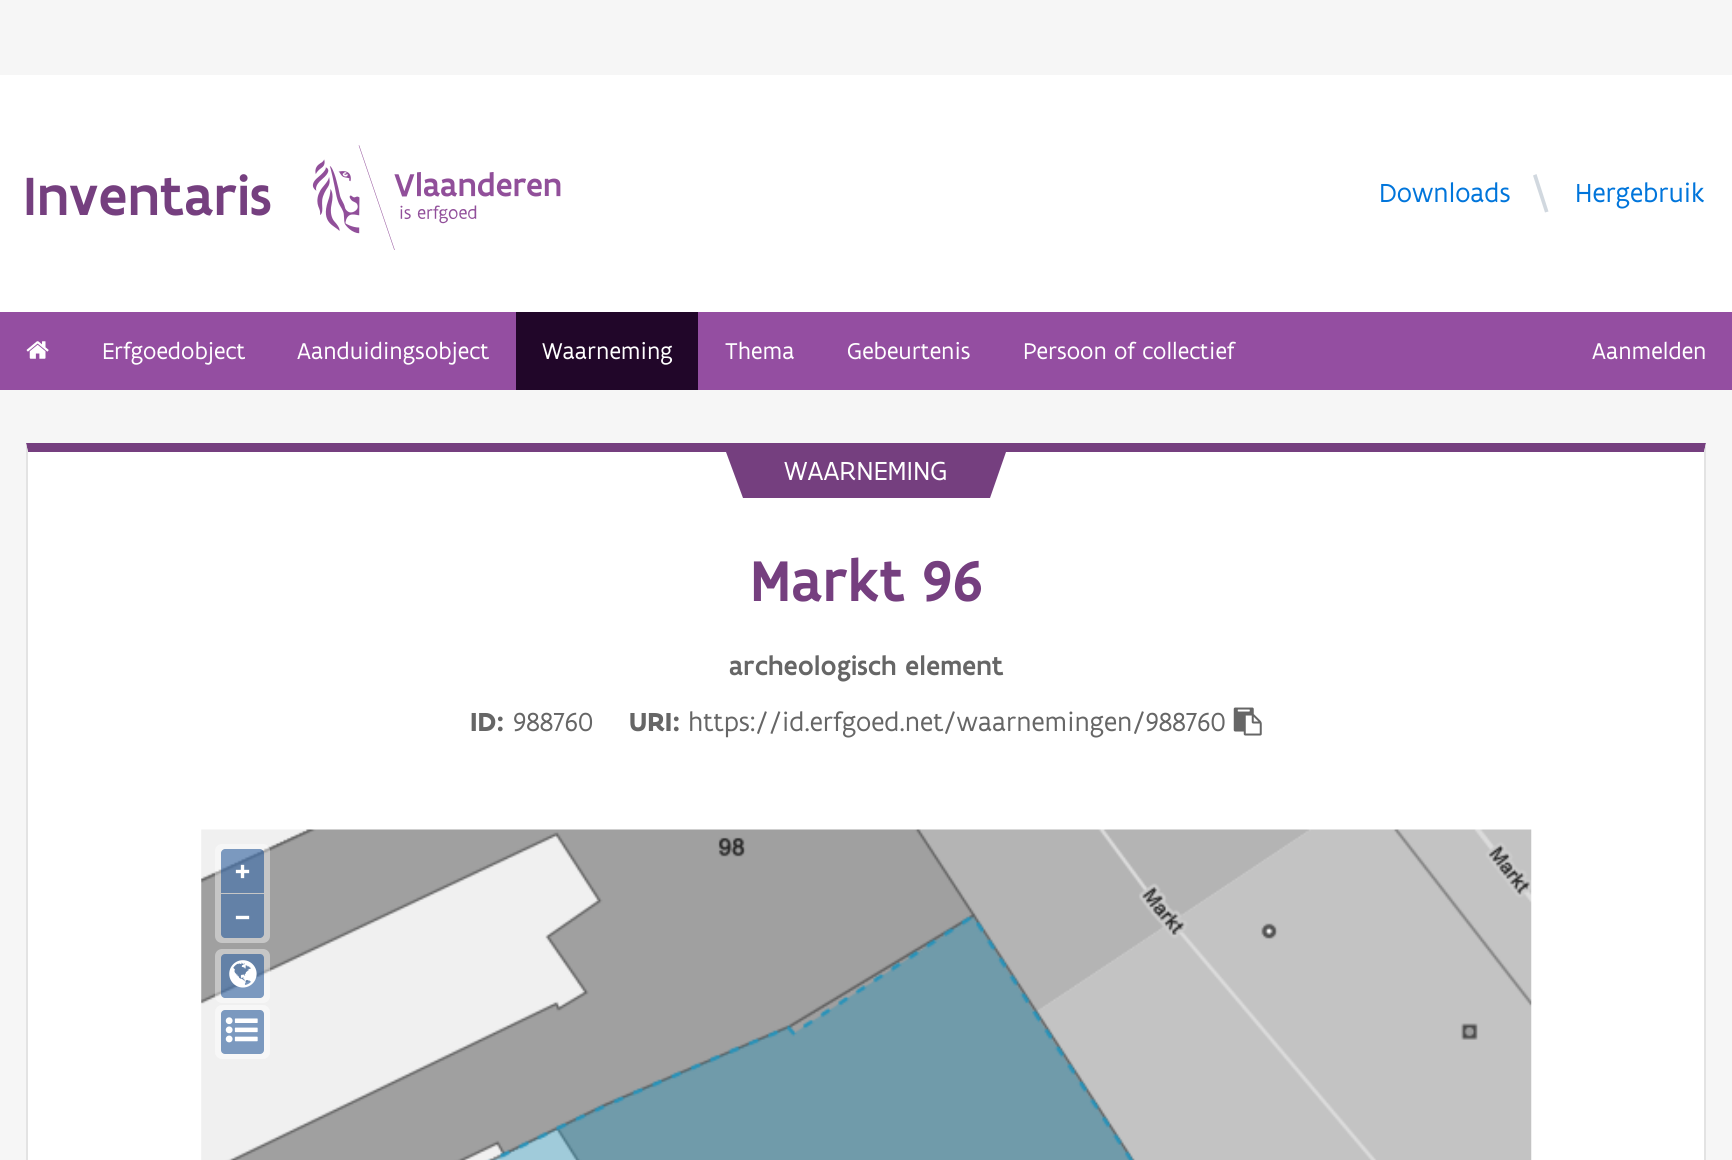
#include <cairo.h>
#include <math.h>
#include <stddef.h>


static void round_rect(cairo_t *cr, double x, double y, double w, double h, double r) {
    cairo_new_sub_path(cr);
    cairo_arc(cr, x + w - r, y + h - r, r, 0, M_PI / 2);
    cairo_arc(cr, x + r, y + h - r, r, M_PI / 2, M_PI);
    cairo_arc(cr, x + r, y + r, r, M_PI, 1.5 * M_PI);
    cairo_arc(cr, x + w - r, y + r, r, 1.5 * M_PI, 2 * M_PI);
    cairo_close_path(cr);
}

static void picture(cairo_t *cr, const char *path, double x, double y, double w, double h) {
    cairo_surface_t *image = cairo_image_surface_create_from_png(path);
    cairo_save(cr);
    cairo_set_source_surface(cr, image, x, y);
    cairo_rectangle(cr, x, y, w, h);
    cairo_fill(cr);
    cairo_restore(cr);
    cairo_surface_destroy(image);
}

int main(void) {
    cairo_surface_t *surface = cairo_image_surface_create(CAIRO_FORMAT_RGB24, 1732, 1160);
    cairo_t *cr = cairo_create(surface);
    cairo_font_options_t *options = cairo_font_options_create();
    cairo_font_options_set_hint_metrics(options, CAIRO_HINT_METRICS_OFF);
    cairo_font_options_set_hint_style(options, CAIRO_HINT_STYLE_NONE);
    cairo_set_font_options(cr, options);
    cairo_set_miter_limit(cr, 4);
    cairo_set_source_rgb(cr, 0.961, 0.961, 0.961);
    cairo_paint(cr);
    cairo_set_source_rgb(cr, 1, 1, 1);
    cairo_rectangle(cr, 0, 75, 1732, 237);
    cairo_fill(cr);
    cairo_select_font_face(cr, "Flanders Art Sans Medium", CAIRO_FONT_SLANT_NORMAL, CAIRO_FONT_WEIGHT_NORMAL);
    cairo_set_font_size(cr, 57.75);
    cairo_set_source_rgb(cr, 0.459, 0.247, 0.498);
    cairo_move_to(cr, 23, 215);
    cairo_show_text(cr, "Inventaris");
    picture(cr, "img1.png", 312, 145, 249, 105);
    cairo_select_font_face(cr, "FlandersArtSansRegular", CAIRO_FONT_SLANT_NORMAL, CAIRO_FONT_WEIGHT_NORMAL);
    cairo_set_font_size(cr, 28);
    cairo_set_source_rgb(cr, 0, 0.459, 0.859);
    cairo_move_to(cr, 1379, 202);
    cairo_show_text(cr, "Downloads");
    cairo_set_source_rgb(cr, 0.82, 0.847, 0.875);
    cairo_new_path(cr);
    cairo_move_to(cr, 1533, 175.5);
    cairo_line_to(cr, 1536.5, 174);
    cairo_line_to(cr, 1548.5, 211.5);
    cairo_line_to(cr, 1545, 212.5);
    cairo_close_path(cr);
    cairo_fill(cr);
    cairo_set_source_rgb(cr, 0, 0.459, 0.859);
    cairo_move_to(cr, 1575, 202);
    cairo_show_text(cr, "Hergebruik");
    cairo_set_source_rgb(cr, 0.58, 0.306, 0.631);
    cairo_rectangle(cr, 0, 312, 1732, 78);
    cairo_fill(cr);
    picture(cr, "img2.png", 26, 341, 23, 18);
    cairo_set_font_size(cr, 24.5);
    cairo_set_source_rgb(cr, 1, 1, 1);
    cairo_move_to(cr, 102, 359);
    cairo_show_text(cr, "Erfgoedobject");
    cairo_move_to(cr, 297, 359);
    cairo_show_text(cr, "Aanduidingsobject");
    cairo_set_source_rgb(cr, 0.129, 0.027, 0.161);
    cairo_rectangle(cr, 516, 312, 182, 78);
    cairo_fill(cr);
    cairo_set_source_rgb(cr, 1, 1, 1);
    cairo_move_to(cr, 542, 359);
    cairo_show_text(cr, "Waarneming");
    cairo_move_to(cr, 725, 359);
    cairo_show_text(cr, "Thema");
    cairo_move_to(cr, 847, 359);
    cairo_show_text(cr, "Gebeurtenis");
    cairo_move_to(cr, 1023, 359);
    cairo_show_text(cr, "Persoon of collectief");
    cairo_move_to(cr, 1592, 359);
    cairo_show_text(cr, "Aanmelden");
    cairo_rectangle(cr, 28, 452, 1676, 708);
    cairo_fill(cr);
    cairo_set_source_rgb(cr, 0.459, 0.247, 0.498);
    cairo_new_path(cr);
    cairo_move_to(cr, 26, 443);
    cairo_line_to(cr, 1706, 443);
    cairo_line_to(cr, 1704, 452);
    cairo_line_to(cr, 28, 452);
    cairo_close_path(cr);
    cairo_fill(cr);
    cairo_set_source_rgb(cr, 0.89, 0.89, 0.89);
    cairo_new_path(cr);
    cairo_move_to(cr, 1706, 443);
    cairo_line_to(cr, 1706, 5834);
    cairo_line_to(cr, 1704, 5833);
    cairo_line_to(cr, 1704, 452);
    cairo_close_path(cr);
    cairo_fill(cr);
    cairo_new_path(cr);
    cairo_move_to(cr, 26, 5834);
    cairo_line_to(cr, 26, 443);
    cairo_line_to(cr, 28, 452);
    cairo_line_to(cr, 28, 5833);
    cairo_close_path(cr);
    cairo_fill(cr);
    cairo_set_source_rgb(cr, 0.459, 0.247, 0.498);
    cairo_new_path(cr);
    cairo_move_to(cr, 726, 452);
    cairo_line_to(cr, 946, 452);
    cairo_line_to(cr, 962, 498);
    cairo_line_to(cr, 743, 498);
    cairo_close_path(cr);
    cairo_fill(cr);
    cairo_new_path(cr);
    cairo_move_to(cr, 787, 452);
    cairo_line_to(cr, 1006, 452);
    cairo_line_to(cr, 990, 498);
    cairo_line_to(cr, 770, 498);
    cairo_close_path(cr);
    cairo_fill(cr);
    cairo_set_font_size(cr, 28);
    cairo_set_source_rgb(cr, 1, 1, 1);
    cairo_move_to(cr, 784, 480);
    cairo_show_text(cr, "WAARNEMING");
    cairo_select_font_face(cr, "Flanders Art Sans Medium", CAIRO_FONT_SLANT_NORMAL, CAIRO_FONT_WEIGHT_NORMAL);
    cairo_set_font_size(cr, 61.5);
    cairo_set_source_rgb(cr, 0.459, 0.247, 0.498);
    cairo_move_to(cr, 750, 601);
    cairo_show_text(cr, "Markt 96");
    cairo_set_font_size(cr, 28);
    cairo_set_source_rgb(cr, 0.4, 0.4, 0.4);
    cairo_move_to(cr, 729, 675);
    cairo_show_text(cr, "archeologisch");
    cairo_move_to(cr, 905, 675);
    cairo_show_text(cr, "element");
    cairo_select_font_face(cr, "Flanders Art Sans", CAIRO_FONT_SLANT_NORMAL, CAIRO_FONT_WEIGHT_BOLD);
    cairo_move_to(cr, 470, 731);
    cairo_show_text(cr, "ID:");
    cairo_select_font_face(cr, "FlandersArtSansRegular", CAIRO_FONT_SLANT_NORMAL, CAIRO_FONT_WEIGHT_NORMAL);
    cairo_move_to(cr, 513, 731);
    cairo_show_text(cr, "988760");
    cairo_select_font_face(cr, "Flanders Art Sans", CAIRO_FONT_SLANT_NORMAL, CAIRO_FONT_WEIGHT_BOLD);
    cairo_move_to(cr, 629, 731);
    cairo_show_text(cr, "URI:");
    cairo_select_font_face(cr, "FlandersArtSansRegular", CAIRO_FONT_SLANT_NORMAL, CAIRO_FONT_WEIGHT_NORMAL);
    cairo_move_to(cr, 688, 731);
    cairo_show_text(cr, "https://id.erfgoed.net/waarnemingen/988760");
    picture(cr, "img3.png", 1233, 707, 29, 29);
    picture(cr, "img4.png", 201, 829, 1331, 331);
    cairo_set_source_rgba(cr, 1, 1, 1, 0.4);
    round_rect(cr, 215, 844, 55, 99, 7);
    cairo_fill(cr);
    cairo_set_source_rgba(cr, 0, 0.235, 0.533, 0.5);
    cairo_new_path(cr);
    cairo_move_to(cr, 225, 849);
    cairo_line_to(cr, 260, 849);
    cairo_curve_to(cr, 262, 849, 264, 851, 264, 853);
    cairo_line_to(cr, 264, 893);
    cairo_line_to(cr, 221, 893);
    cairo_line_to(cr, 221, 853);
    cairo_curve_to(cr, 221, 851, 223, 849, 225, 849);
    cairo_close_path(cr);
    cairo_fill(cr);
    cairo_select_font_face(cr, "FlandersArtSansRegular", CAIRO_FONT_SLANT_NORMAL, CAIRO_FONT_WEIGHT_BOLD);
    cairo_set_font_size(cr, 32);
    cairo_set_source_rgb(cr, 1, 1, 1);
    cairo_move_to(cr, 234, 880);
    cairo_show_text(cr, "+");
    cairo_set_source_rgb(cr, 0.388, 0.506, 0.655);
    cairo_new_path(cr);
    cairo_move_to(cr, 221, 894);
    cairo_line_to(cr, 264, 894);
    cairo_line_to(cr, 264, 934);
    cairo_curve_to(cr, 264, 936, 262, 938, 260, 938);
    cairo_line_to(cr, 225, 938);
    cairo_curve_to(cr, 223, 938, 221, 936, 221, 934);
    cairo_close_path(cr);
    cairo_fill(cr);
    cairo_set_source_rgb(cr, 1, 1, 1);
    cairo_move_to(cr, 234, 926);
    cairo_show_text(cr, "−");
    cairo_set_source_rgba(cr, 1, 1, 1, 0.4);
    round_rect(cr, 215, 949, 55, 54, 7);
    cairo_fill(cr);
    cairo_set_source_rgba(cr, 0, 0.235, 0.533, 0.5);
    round_rect(cr, 221, 954, 43, 44, 4);
    cairo_fill(cr);
    picture(cr, "img5.png", 229, 960, 28, 28);
    cairo_set_source_rgb(cr, 0.965, 0.965, 0.965);
    round_rect(cr, 215, 1005, 55, 54, 7);
    cairo_fill(cr);
    cairo_set_source_rgb(cr, 0.482, 0.6, 0.749);
    round_rect(cr, 221, 1010, 43, 44, 4);
    cairo_fill(cr);
    picture(cr, "img6.png", 225, 1017, 33, 26);
    cairo_surface_write_to_png(surface, "page.png");
    cairo_font_options_destroy(options);
    cairo_destroy(cr);
    cairo_surface_destroy(surface);
    return 0;
}
